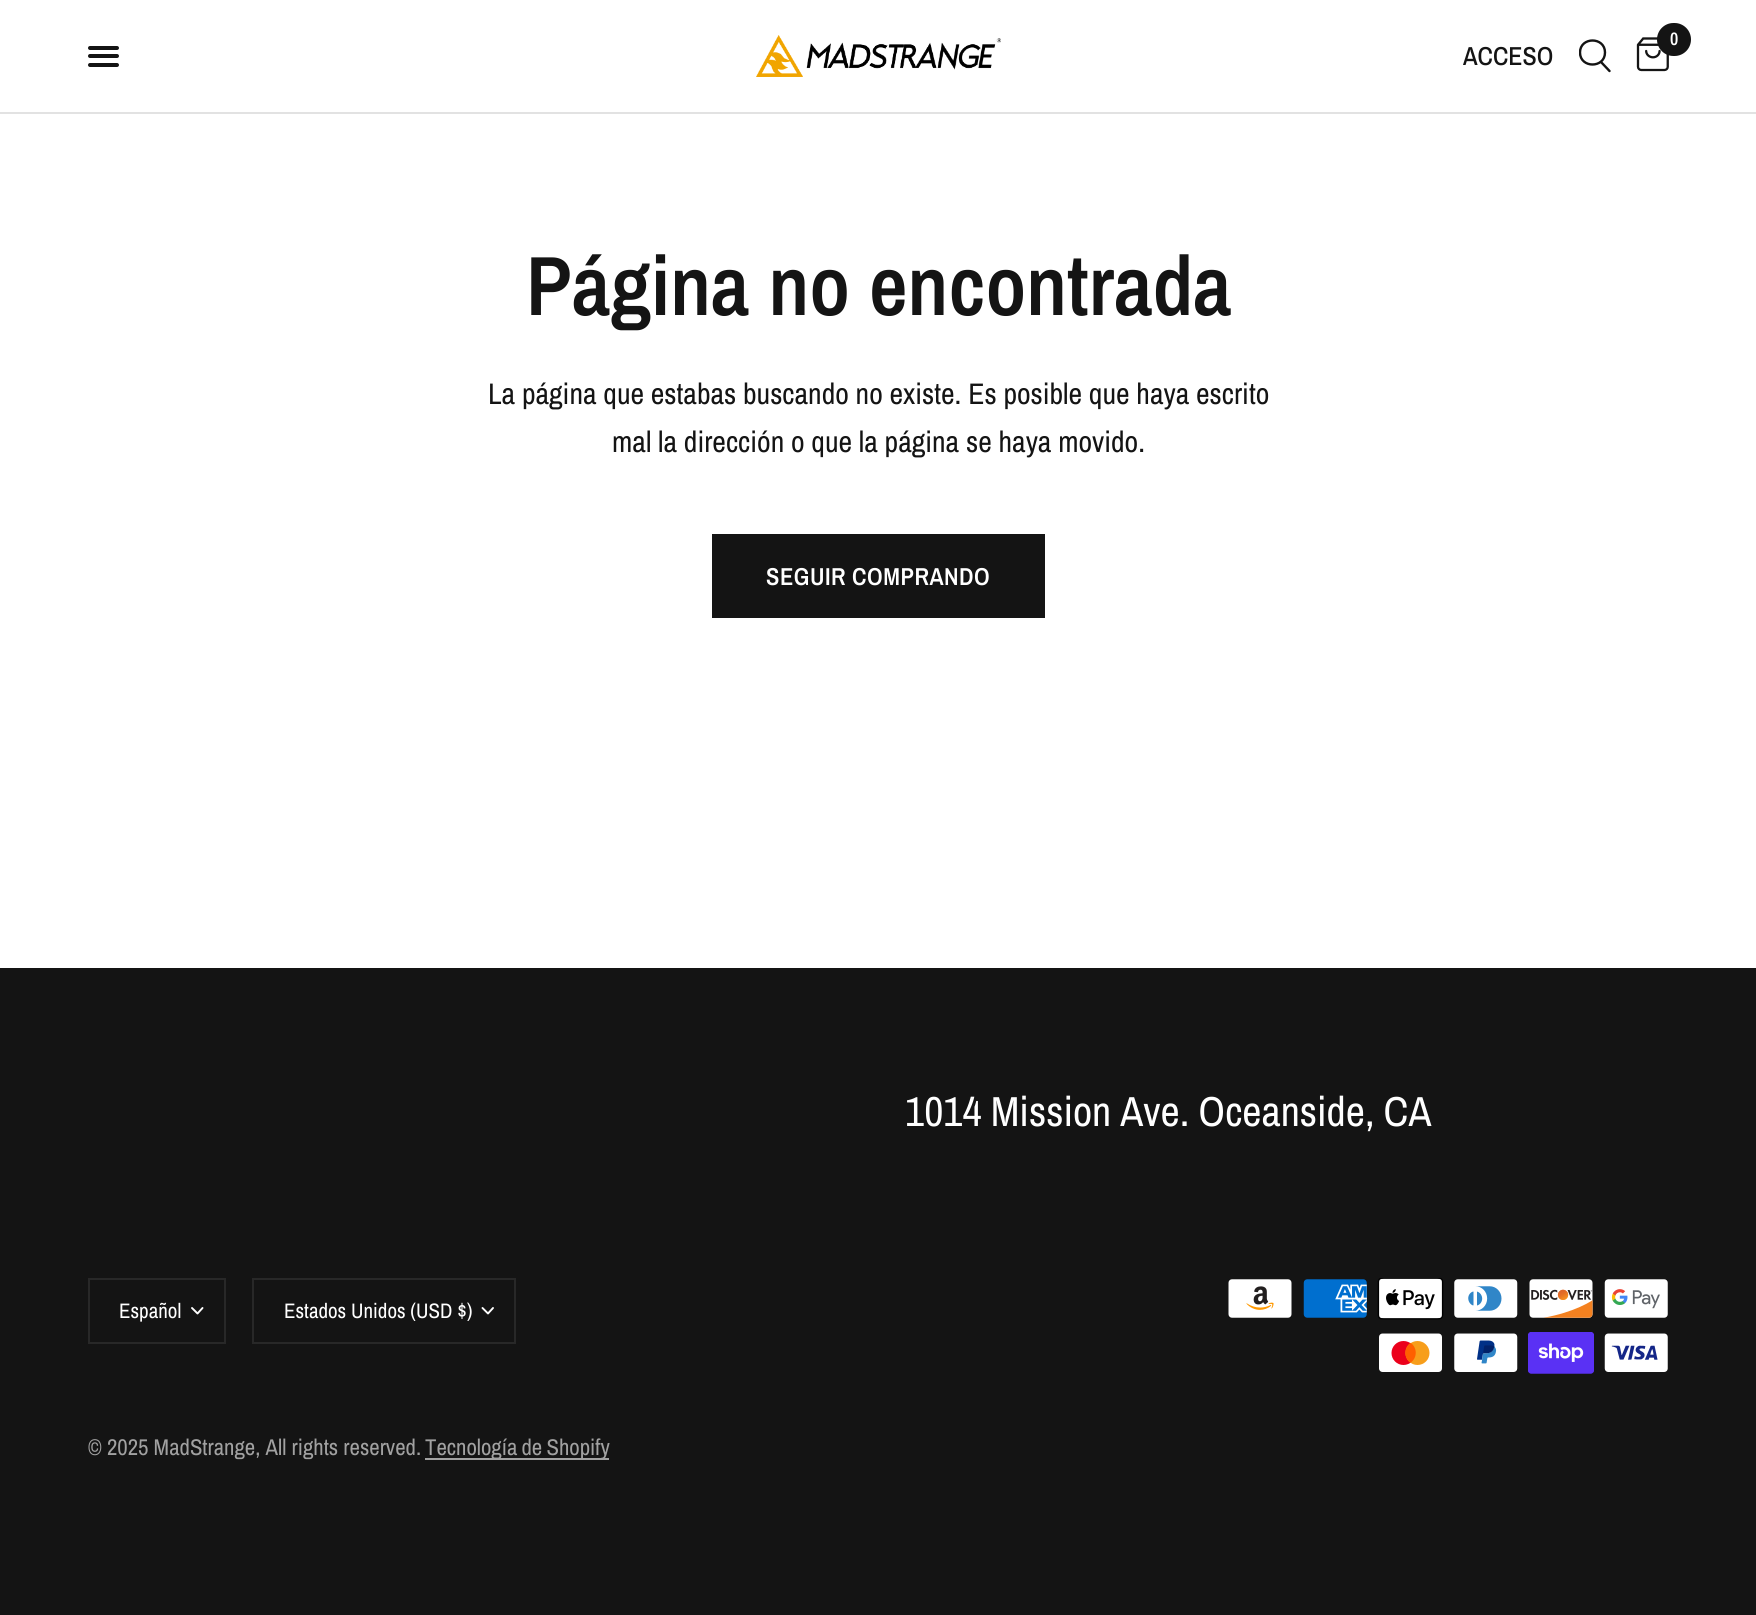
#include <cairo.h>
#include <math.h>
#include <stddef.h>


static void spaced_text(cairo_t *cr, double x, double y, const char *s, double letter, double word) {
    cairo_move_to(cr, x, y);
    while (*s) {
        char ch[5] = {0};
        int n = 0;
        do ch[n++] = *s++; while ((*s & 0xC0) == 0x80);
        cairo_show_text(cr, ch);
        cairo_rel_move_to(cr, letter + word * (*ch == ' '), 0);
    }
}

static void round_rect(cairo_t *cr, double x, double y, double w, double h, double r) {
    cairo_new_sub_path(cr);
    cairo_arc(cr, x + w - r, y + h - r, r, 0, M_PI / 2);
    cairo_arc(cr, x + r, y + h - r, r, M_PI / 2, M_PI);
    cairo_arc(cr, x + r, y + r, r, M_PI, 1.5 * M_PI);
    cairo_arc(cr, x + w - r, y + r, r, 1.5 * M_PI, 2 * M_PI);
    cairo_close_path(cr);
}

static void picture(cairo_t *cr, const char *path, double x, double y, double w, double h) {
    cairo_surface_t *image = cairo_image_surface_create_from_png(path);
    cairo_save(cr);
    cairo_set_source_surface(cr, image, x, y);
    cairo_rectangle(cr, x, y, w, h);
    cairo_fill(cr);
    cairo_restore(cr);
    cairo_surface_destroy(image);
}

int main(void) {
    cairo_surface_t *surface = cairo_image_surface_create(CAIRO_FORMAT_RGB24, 1756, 1615);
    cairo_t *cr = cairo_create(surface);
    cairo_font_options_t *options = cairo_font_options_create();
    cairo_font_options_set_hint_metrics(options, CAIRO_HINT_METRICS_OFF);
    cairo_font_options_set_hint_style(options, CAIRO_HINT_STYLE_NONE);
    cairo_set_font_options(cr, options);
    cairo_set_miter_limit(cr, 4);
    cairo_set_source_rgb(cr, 1, 1, 1);
    cairo_paint(cr);
    cairo_set_source_rgb(cr, 0.886, 0.886, 0.886);
    cairo_rectangle(cr, 0, 112, 1756, 2);
    cairo_fill(cr);
    cairo_set_source_rgb(cr, 0.082, 0.082, 0.082);
    round_rect(cr, 88, 46, 31, 4, 2);
    cairo_fill(cr);
    round_rect(cr, 88, 54, 31, 4, 2);
    cairo_fill(cr);
    round_rect(cr, 88, 63, 31, 4, 2);
    cairo_fill(cr);
    picture(cr, "img1.png", 756, 35, 245, 42);
    cairo_select_font_face(cr, "Archivo Narrow Medium", CAIRO_FONT_SLANT_NORMAL, CAIRO_FONT_WEIGHT_NORMAL);
    cairo_set_font_size(cr, 26);
    cairo_move_to(cr, 1463, 65);
    cairo_show_text(cr, "ACCESO");
    cairo_save(cr);
    cairo_rectangle(cr, 1579, 39, 33, 35);
    cairo_clip(cr);
    cairo_new_path(cr);
    cairo_move_to(cr, 1601, 62);
    cairo_line_to(cr, 1609.5, 71);
    cairo_move_to(cr, 1605, 52.5);
    cairo_curve_to(cr, 1605, 68.5, 1580, 68.5, 1580, 52.5);
    cairo_curve_to(cr, 1580, 36.5, 1605, 36.5, 1605, 52.5);
    cairo_close_path(cr);
    cairo_set_line_width(cr, 2.4);
    cairo_set_line_cap(cr, CAIRO_LINE_CAP_ROUND);
    cairo_set_line_join(cr, CAIRO_LINE_JOIN_ROUND);
    cairo_stroke(cr);
    cairo_restore(cr);
    picture(cr, "img2.png", 1636, 37, 33, 35);
    round_rect(cr, 1657, 23, 34, 33, 16.5);
    cairo_fill(cr);
    cairo_select_font_face(cr, "Archivo Narrow SemiBold", CAIRO_FONT_SLANT_NORMAL, CAIRO_FONT_WEIGHT_NORMAL);
    cairo_set_font_size(cr, 18);
    cairo_set_source_rgb(cr, 1, 1, 1);
    cairo_move_to(cr, 1670, 45);
    cairo_show_text(cr, "0");
    cairo_set_font_size(cr, 84);
    cairo_set_source_rgb(cr, 0.082, 0.082, 0.082);
    cairo_move_to(cr, 526, 315);
    cairo_show_text(cr, "Página no encontrada");
    cairo_select_font_face(cr, "Archivo Narrow", CAIRO_FONT_SLANT_NORMAL, CAIRO_FONT_WEIGHT_NORMAL);
    cairo_set_font_size(cr, 29.75);
    cairo_move_to(cr, 488, 404);
    cairo_show_text(cr, "La página que estabas buscando no existe. Es posible que haya escrito");
    cairo_move_to(cr, 612, 452);
    cairo_show_text(cr, "mal la dirección o que la página se haya movido.");
    cairo_rectangle(cr, 712, 534, 333, 84);
    cairo_fill(cr);
    cairo_select_font_face(cr, "Archivo Narrow SemiBold", CAIRO_FONT_SLANT_NORMAL, CAIRO_FONT_WEIGHT_NORMAL);
    cairo_set_font_size(cr, 24.5);
    cairo_set_source_rgb(cr, 1, 1, 1);
    spaced_text(cr, 766, 585, "SEGUIR COMPRANDO", 0.5, 0);
    cairo_set_source_rgb(cr, 0.082, 0.082, 0.082);
    cairo_rectangle(cr, 0, 968, 1756, 647);
    cairo_fill(cr);
    cairo_select_font_face(cr, "Archivo Narrow", CAIRO_FONT_SLANT_NORMAL, CAIRO_FONT_WEIGHT_NORMAL);
    cairo_set_font_size(cr, 42);
    cairo_set_source_rgb(cr, 1, 1, 1);
    spaced_text(cr, 905, 1126, "1014 Mission Ave. Oceanside, CA", 0, -0.5);
    cairo_rectangle(cr, 89, 1279, 136, 64);
    cairo_set_source_rgb(cr, 0.157, 0.157, 0.157);
    cairo_stroke(cr);
    cairo_set_font_size(cr, 21);
    cairo_set_source_rgb(cr, 1, 1, 1);
    cairo_move_to(cr, 119, 1318);
    cairo_show_text(cr, "Español");
    cairo_new_path(cr);
    cairo_move_to(cr, 202.5, 1308);
    cairo_line_to(cr, 197.5, 1313.5);
    cairo_line_to(cr, 192, 1308);
    cairo_set_line_width(cr, 1.9);
    cairo_set_line_cap(cr, CAIRO_LINE_CAP_ROUND);
    cairo_set_line_join(cr, CAIRO_LINE_JOIN_ROUND);
    cairo_stroke(cr);
    cairo_rectangle(cr, 253, 1279, 262, 64);
    cairo_set_source_rgb(cr, 0.157, 0.157, 0.157);
    cairo_set_line_width(cr, 2);
    cairo_set_line_cap(cr, CAIRO_LINE_CAP_BUTT);
    cairo_set_line_join(cr, CAIRO_LINE_JOIN_MITER);
    cairo_stroke(cr);
    cairo_save(cr);
    cairo_rectangle(cr, 284, 1300, 189, 21);
    cairo_clip(cr);
    cairo_set_source_rgb(cr, 1, 1, 1);
    cairo_move_to(cr, 284, 1318);
    cairo_show_text(cr, "Estados Unidos (USD $)");
    cairo_restore(cr);
    cairo_new_path(cr);
    cairo_move_to(cr, 493, 1308);
    cairo_line_to(cr, 488, 1313.5);
    cairo_line_to(cr, 482.5, 1308);
    cairo_set_source_rgb(cr, 1, 1, 1);
    cairo_set_line_width(cr, 1.9);
    cairo_set_line_cap(cr, CAIRO_LINE_CAP_ROUND);
    cairo_set_line_join(cr, CAIRO_LINE_JOIN_ROUND);
    cairo_stroke(cr);
    picture(cr, "img3.png", 1228, 1279, 64, 39);
    picture(cr, "img4.png", 1303, 1279, 64, 39);
    picture(cr, "img5.png", 1377, 1278, 67, 42);
    picture(cr, "img6.png", 1454, 1279, 64, 39);
    picture(cr, "img7.png", 1529, 1279, 64, 39);
    picture(cr, "img8.png", 1604, 1279, 64, 39);
    picture(cr, "img9.png", 1379, 1333, 63, 39);
    picture(cr, "img10.png", 1454, 1333, 64, 39);
    picture(cr, "img11.png", 1528, 1332, 66, 42);
    picture(cr, "img12.png", 1604, 1333, 64, 39);
    cairo_set_font_size(cr, 22.75);
    cairo_set_source_rgb(cr, 0.631, 0.631, 0.631);
    cairo_move_to(cr, 88, 1455);
    cairo_show_text(cr, "© 2025 MadStrange, All rights reserved.");
    cairo_rectangle(cr, 425, 1458, 184, 2);
    cairo_fill(cr);
    spaced_text(cr, 425, 1455, "Tecnología de Shopify", 0, -1);
    cairo_surface_write_to_png(surface, "page.png");
    cairo_font_options_destroy(options);
    cairo_destroy(cr);
    cairo_surface_destroy(surface);
    return 0;
}
